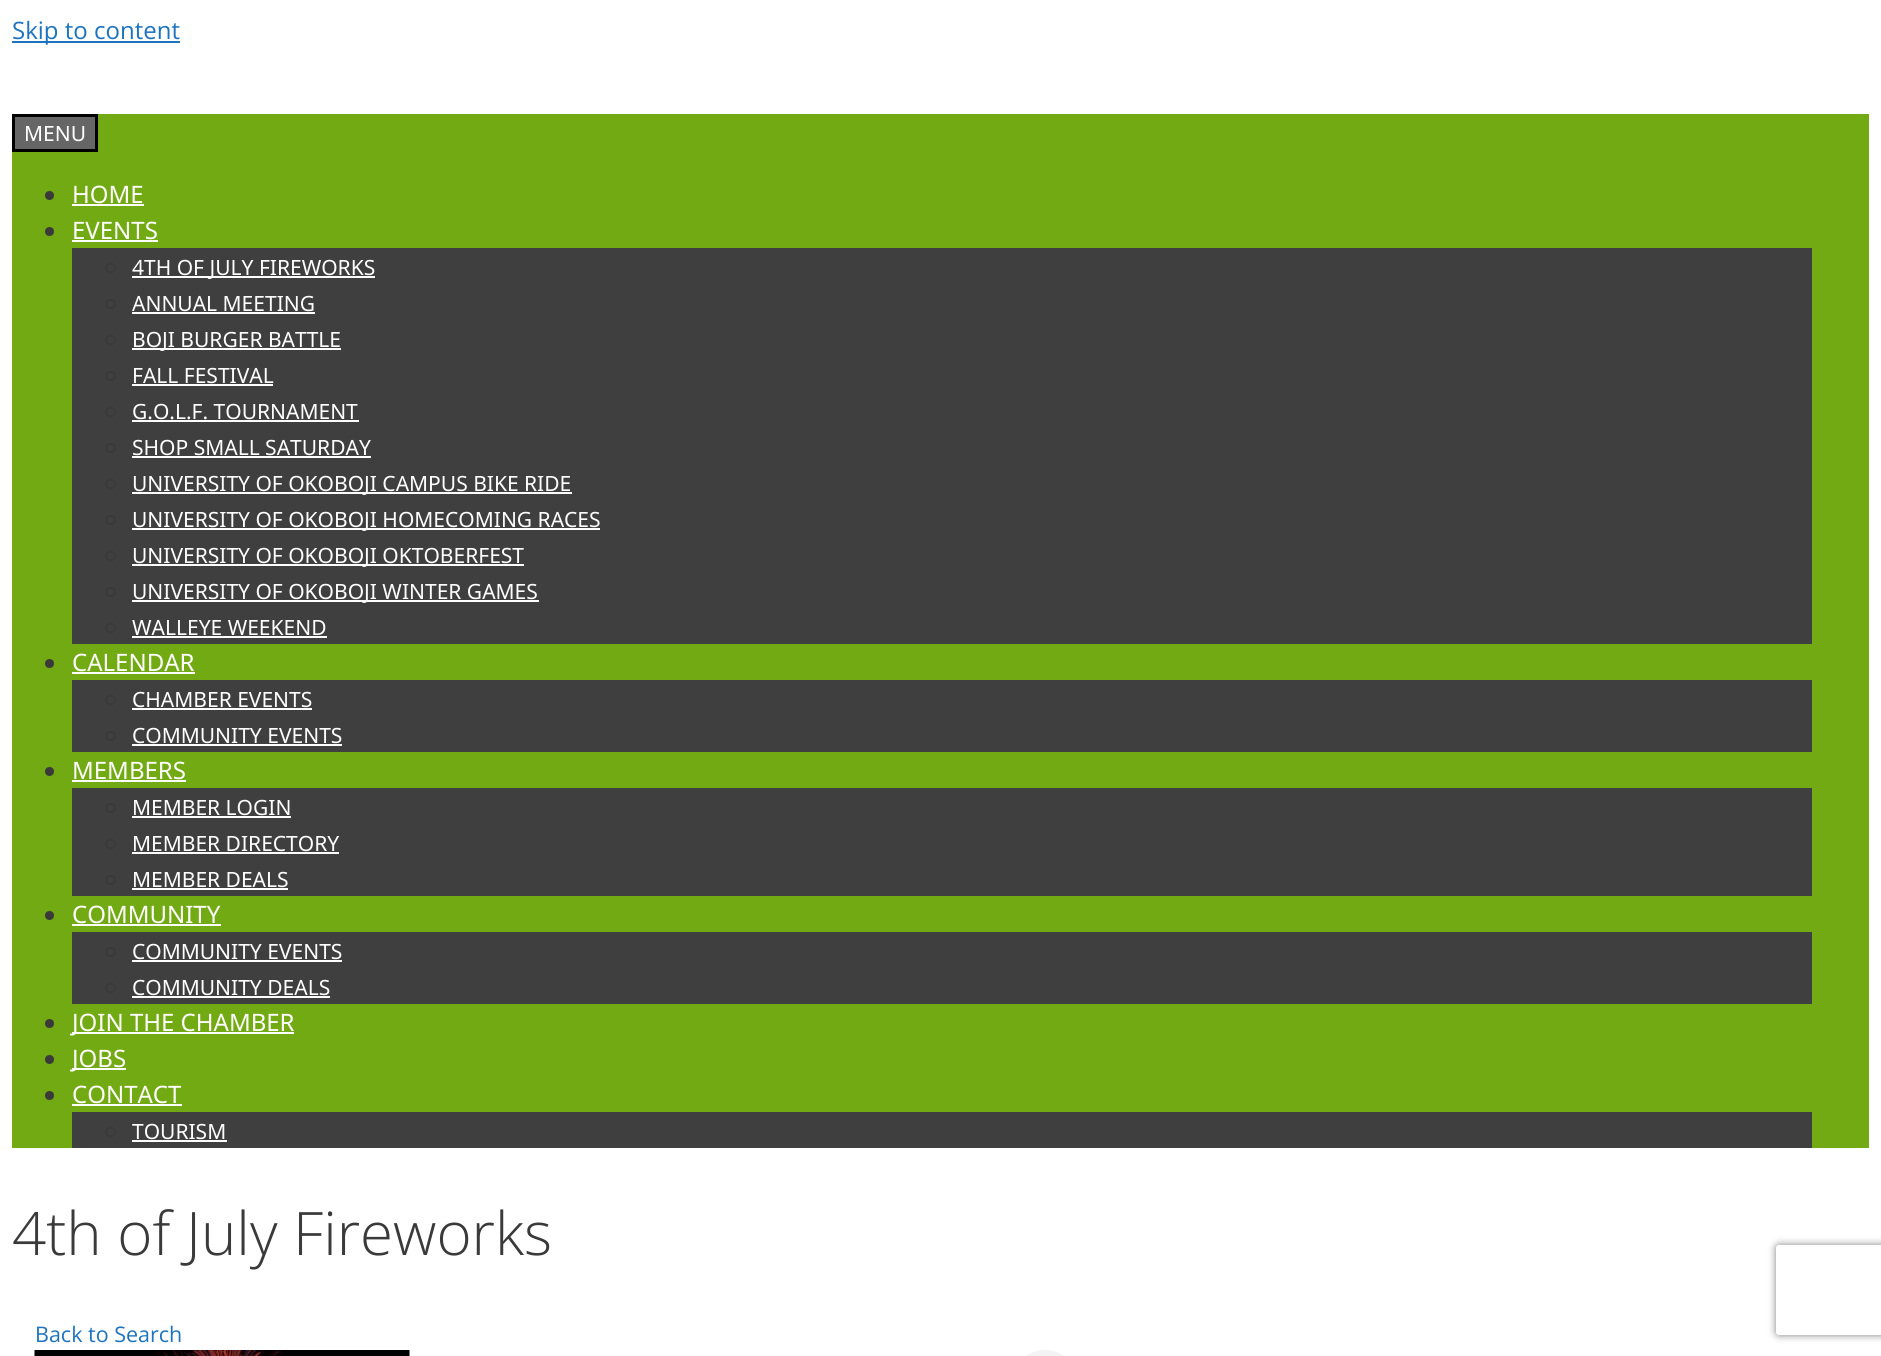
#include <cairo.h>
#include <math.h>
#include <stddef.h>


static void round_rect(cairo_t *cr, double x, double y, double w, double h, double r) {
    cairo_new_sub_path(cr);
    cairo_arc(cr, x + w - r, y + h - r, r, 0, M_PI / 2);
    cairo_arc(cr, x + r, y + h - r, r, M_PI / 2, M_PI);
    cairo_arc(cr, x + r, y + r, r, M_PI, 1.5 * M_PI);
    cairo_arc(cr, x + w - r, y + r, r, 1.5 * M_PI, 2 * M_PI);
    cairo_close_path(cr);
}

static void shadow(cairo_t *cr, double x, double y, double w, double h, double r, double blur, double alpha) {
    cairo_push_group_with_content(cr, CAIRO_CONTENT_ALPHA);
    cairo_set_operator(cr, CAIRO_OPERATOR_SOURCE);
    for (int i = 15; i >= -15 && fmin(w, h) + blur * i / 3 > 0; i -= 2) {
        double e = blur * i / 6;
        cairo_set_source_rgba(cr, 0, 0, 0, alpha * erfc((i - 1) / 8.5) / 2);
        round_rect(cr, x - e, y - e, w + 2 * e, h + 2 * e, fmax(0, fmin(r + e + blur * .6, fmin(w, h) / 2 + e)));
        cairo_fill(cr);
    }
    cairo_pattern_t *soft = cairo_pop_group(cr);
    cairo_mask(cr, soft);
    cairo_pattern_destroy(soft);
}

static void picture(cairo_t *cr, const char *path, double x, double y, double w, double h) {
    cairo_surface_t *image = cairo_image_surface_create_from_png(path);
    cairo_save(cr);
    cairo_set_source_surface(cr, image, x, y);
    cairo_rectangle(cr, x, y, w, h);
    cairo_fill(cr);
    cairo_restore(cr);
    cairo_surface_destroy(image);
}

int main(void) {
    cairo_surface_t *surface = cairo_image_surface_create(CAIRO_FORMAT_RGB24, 1881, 1356);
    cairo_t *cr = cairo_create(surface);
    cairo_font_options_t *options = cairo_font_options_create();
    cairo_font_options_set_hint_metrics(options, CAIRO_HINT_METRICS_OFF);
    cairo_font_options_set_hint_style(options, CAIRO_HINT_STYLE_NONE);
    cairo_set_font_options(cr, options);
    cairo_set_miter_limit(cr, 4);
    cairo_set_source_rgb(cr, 1, 1, 1);
    cairo_paint(cr);
    cairo_set_source_rgb(cr, 0.118, 0.451, 0.745);
    cairo_rectangle(cr, 12, 41, 168, 2);
    cairo_fill(cr);
    cairo_select_font_face(cr, "Open Sans", CAIRO_FONT_SLANT_NORMAL, CAIRO_FONT_WEIGHT_NORMAL);
    cairo_set_font_size(cr, 24);
    cairo_move_to(cr, 12, 39);
    cairo_show_text(cr, "Skip to content");
    cairo_set_source_rgb(cr, 0.447, 0.667, 0.075);
    cairo_rectangle(cr, 12, 114, 1857, 1034);
    cairo_fill(cr);
    cairo_set_source_rgb(cr, 0.4, 0.4, 0.4);
    cairo_rectangle(cr, 13.5, 115.5, 83, 35);
    cairo_fill_preserve(cr);
    cairo_set_source_rgb(cr, 0, 0, 0);
    cairo_set_line_width(cr, 3);
    cairo_stroke(cr);
    cairo_select_font_face(cr, "Noto Sans", CAIRO_FONT_SLANT_NORMAL, CAIRO_FONT_WEIGHT_NORMAL);
    cairo_set_font_size(cr, 21);
    cairo_set_source_rgb(cr, 1, 1, 1);
    cairo_move_to(cr, 24, 141);
    cairo_show_text(cr, "MENU");
    cairo_set_source_rgb(cr, 0.227, 0.227, 0.227);
    cairo_new_path(cr);
    cairo_arc(cr, 49.5, 195.5, 4.5, 0, 2 * M_PI);
    cairo_fill(cr);
    cairo_set_font_size(cr, 24);
    cairo_set_source_rgb(cr, 1, 1, 1);
    cairo_move_to(cr, 72, 203);
    cairo_show_text(cr, "HOME");
    cairo_rectangle(cr, 72, 204, 72, 2);
    cairo_fill(cr);
    cairo_set_source_rgb(cr, 0.227, 0.227, 0.227);
    cairo_arc(cr, 49.5, 231.5, 4.5, 0, 2 * M_PI);
    cairo_fill(cr);
    cairo_set_source_rgb(cr, 1, 1, 1);
    cairo_move_to(cr, 72, 239);
    cairo_show_text(cr, "EVENTS");
    cairo_rectangle(cr, 72, 240, 86, 2);
    cairo_fill(cr);
    cairo_set_source_rgb(cr, 0.247, 0.247, 0.247);
    cairo_rectangle(cr, 72, 248, 1740, 396);
    cairo_fill(cr);
    round_rect(cr, 106, 264, 9, 8, 4);
    cairo_set_source_rgb(cr, 0.227, 0.227, 0.227);
    cairo_set_line_width(cr, 2);
    cairo_stroke(cr);
    cairo_set_source_rgb(cr, 1, 1, 1);
    cairo_rectangle(cr, 132, 276, 243, 2);
    cairo_fill(cr);
    cairo_set_font_size(cr, 21);
    cairo_move_to(cr, 132, 275);
    cairo_show_text(cr, "4TH OF JULY FIREWORKS");
    round_rect(cr, 106, 300, 9, 8, 4);
    cairo_set_source_rgb(cr, 0.227, 0.227, 0.227);
    cairo_stroke(cr);
    cairo_set_source_rgb(cr, 1, 1, 1);
    cairo_move_to(cr, 132, 311);
    cairo_show_text(cr, "ANNUAL MEETING");
    cairo_rectangle(cr, 132, 312, 183, 2);
    cairo_fill(cr);
    round_rect(cr, 106, 336, 9, 8, 4);
    cairo_set_source_rgb(cr, 0.227, 0.227, 0.227);
    cairo_stroke(cr);
    cairo_set_source_rgb(cr, 1, 1, 1);
    cairo_rectangle(cr, 132, 348, 209, 2);
    cairo_fill(cr);
    cairo_move_to(cr, 132, 347);
    cairo_show_text(cr, "BOJI BURGER BATTLE");
    round_rect(cr, 106, 372, 9, 8, 4);
    cairo_set_source_rgb(cr, 0.227, 0.227, 0.227);
    cairo_stroke(cr);
    cairo_set_source_rgb(cr, 1, 1, 1);
    cairo_move_to(cr, 132, 383);
    cairo_show_text(cr, "FALL FESTIVAL");
    cairo_rectangle(cr, 132, 384, 141, 2);
    cairo_fill(cr);
    round_rect(cr, 106, 408, 9, 8, 4);
    cairo_set_source_rgb(cr, 0.227, 0.227, 0.227);
    cairo_stroke(cr);
    cairo_set_source_rgb(cr, 1, 1, 1);
    cairo_move_to(cr, 132, 419);
    cairo_show_text(cr, "G.O.L.F. TOURNAMENT");
    cairo_rectangle(cr, 132, 420, 227, 2);
    cairo_fill(cr);
    round_rect(cr, 106, 444, 9, 8, 4);
    cairo_set_source_rgb(cr, 0.227, 0.227, 0.227);
    cairo_stroke(cr);
    cairo_set_source_rgb(cr, 1, 1, 1);
    cairo_move_to(cr, 132, 455);
    cairo_show_text(cr, "SHOP SMALL SATURDAY");
    cairo_rectangle(cr, 132, 456, 239, 2);
    cairo_fill(cr);
    round_rect(cr, 106, 480, 9, 8, 4);
    cairo_set_source_rgb(cr, 0.227, 0.227, 0.227);
    cairo_stroke(cr);
    cairo_set_source_rgb(cr, 1, 1, 1);
    cairo_rectangle(cr, 132, 492, 440, 2);
    cairo_fill(cr);
    cairo_move_to(cr, 132, 491);
    cairo_show_text(cr, "UNIVERSITY OF OKOBOJI CAMPUS BIKE RIDE");
    round_rect(cr, 106, 516, 9, 8, 4);
    cairo_set_source_rgb(cr, 0.227, 0.227, 0.227);
    cairo_stroke(cr);
    cairo_set_source_rgb(cr, 1, 1, 1);
    cairo_rectangle(cr, 132, 528, 468, 2);
    cairo_fill(cr);
    cairo_move_to(cr, 132, 527);
    cairo_show_text(cr, "UNIVERSITY OF OKOBOJI HOMECOMING RACES");
    round_rect(cr, 106, 552, 9, 8, 4);
    cairo_set_source_rgb(cr, 0.227, 0.227, 0.227);
    cairo_stroke(cr);
    cairo_set_source_rgb(cr, 1, 1, 1);
    cairo_rectangle(cr, 132, 564, 392, 2);
    cairo_fill(cr);
    cairo_move_to(cr, 132, 563);
    cairo_show_text(cr, "UNIVERSITY OF OKOBOJI OKTOBERFEST");
    round_rect(cr, 106, 588, 9, 8, 4);
    cairo_set_source_rgb(cr, 0.227, 0.227, 0.227);
    cairo_stroke(cr);
    cairo_set_source_rgb(cr, 1, 1, 1);
    cairo_rectangle(cr, 132, 600, 407, 2);
    cairo_fill(cr);
    cairo_move_to(cr, 132, 599);
    cairo_show_text(cr, "UNIVERSITY OF OKOBOJI WINTER GAMES");
    round_rect(cr, 106, 624, 9, 8, 4);
    cairo_set_source_rgb(cr, 0.227, 0.227, 0.227);
    cairo_stroke(cr);
    cairo_set_source_rgb(cr, 1, 1, 1);
    cairo_move_to(cr, 132, 635);
    cairo_show_text(cr, "WALLEYE WEEKEND");
    cairo_rectangle(cr, 132, 636, 195, 2);
    cairo_fill(cr);
    cairo_set_source_rgb(cr, 0.227, 0.227, 0.227);
    cairo_arc(cr, 49.5, 663.5, 4.5, 0, 2 * M_PI);
    cairo_fill(cr);
    cairo_set_font_size(cr, 24);
    cairo_set_source_rgb(cr, 1, 1, 1);
    cairo_move_to(cr, 72, 671);
    cairo_show_text(cr, "CALENDAR");
    cairo_rectangle(cr, 72, 672, 123, 2);
    cairo_fill(cr);
    cairo_set_source_rgb(cr, 0.247, 0.247, 0.247);
    cairo_rectangle(cr, 72, 680, 1740, 72);
    cairo_fill(cr);
    round_rect(cr, 106, 696, 9, 8, 4);
    cairo_set_source_rgb(cr, 0.227, 0.227, 0.227);
    cairo_stroke(cr);
    cairo_set_font_size(cr, 21);
    cairo_set_source_rgb(cr, 1, 1, 1);
    cairo_move_to(cr, 132, 707);
    cairo_show_text(cr, "CHAMBER EVENTS");
    cairo_rectangle(cr, 132, 708, 180, 2);
    cairo_fill(cr);
    round_rect(cr, 106, 732, 9, 8, 4);
    cairo_set_source_rgb(cr, 0.227, 0.227, 0.227);
    cairo_stroke(cr);
    cairo_set_source_rgb(cr, 1, 1, 1);
    cairo_move_to(cr, 132, 743);
    cairo_show_text(cr, "COMMUNITY EVENTS");
    cairo_rectangle(cr, 132, 744, 210, 2);
    cairo_fill(cr);
    cairo_set_source_rgb(cr, 0.227, 0.227, 0.227);
    cairo_arc(cr, 49.5, 771.5, 4.5, 0, 2 * M_PI);
    cairo_fill(cr);
    cairo_set_font_size(cr, 24);
    cairo_set_source_rgb(cr, 1, 1, 1);
    cairo_move_to(cr, 72, 779);
    cairo_show_text(cr, "MEMBERS");
    cairo_rectangle(cr, 72, 780, 114, 2);
    cairo_fill(cr);
    cairo_set_source_rgb(cr, 0.247, 0.247, 0.247);
    cairo_rectangle(cr, 72, 788, 1740, 108);
    cairo_fill(cr);
    round_rect(cr, 106, 804, 9, 8, 4);
    cairo_set_source_rgb(cr, 0.227, 0.227, 0.227);
    cairo_stroke(cr);
    cairo_set_font_size(cr, 21);
    cairo_set_source_rgb(cr, 1, 1, 1);
    cairo_move_to(cr, 132, 815);
    cairo_show_text(cr, "MEMBER LOGIN");
    cairo_rectangle(cr, 132, 816, 159, 2);
    cairo_fill(cr);
    round_rect(cr, 106, 840, 9, 8, 4);
    cairo_set_source_rgb(cr, 0.227, 0.227, 0.227);
    cairo_stroke(cr);
    cairo_set_source_rgb(cr, 1, 1, 1);
    cairo_move_to(cr, 132, 851);
    cairo_show_text(cr, "MEMBER DIRECTORY");
    cairo_rectangle(cr, 132, 852, 207, 2);
    cairo_fill(cr);
    round_rect(cr, 106, 876, 9, 8, 4);
    cairo_set_source_rgb(cr, 0.227, 0.227, 0.227);
    cairo_stroke(cr);
    cairo_set_source_rgb(cr, 1, 1, 1);
    cairo_move_to(cr, 132, 887);
    cairo_show_text(cr, "MEMBER DEALS");
    cairo_rectangle(cr, 132, 888, 156, 2);
    cairo_fill(cr);
    cairo_set_source_rgb(cr, 0.227, 0.227, 0.227);
    cairo_arc(cr, 49.5, 915.5, 4.5, 0, 2 * M_PI);
    cairo_fill(cr);
    cairo_set_font_size(cr, 24);
    cairo_set_source_rgb(cr, 1, 1, 1);
    cairo_move_to(cr, 72, 923);
    cairo_show_text(cr, "COMMUNITY");
    cairo_rectangle(cr, 72, 924, 149, 2);
    cairo_fill(cr);
    cairo_set_source_rgb(cr, 0.247, 0.247, 0.247);
    cairo_rectangle(cr, 72, 932, 1740, 72);
    cairo_fill(cr);
    round_rect(cr, 106, 948, 9, 8, 4);
    cairo_set_source_rgb(cr, 0.227, 0.227, 0.227);
    cairo_stroke(cr);
    cairo_set_font_size(cr, 21);
    cairo_set_source_rgb(cr, 1, 1, 1);
    cairo_move_to(cr, 132, 959);
    cairo_show_text(cr, "COMMUNITY EVENTS");
    cairo_rectangle(cr, 132, 960, 210, 2);
    cairo_fill(cr);
    round_rect(cr, 106, 984, 9, 8, 4);
    cairo_set_source_rgb(cr, 0.227, 0.227, 0.227);
    cairo_stroke(cr);
    cairo_set_source_rgb(cr, 1, 1, 1);
    cairo_move_to(cr, 132, 995);
    cairo_show_text(cr, "COMMUNITY DEALS");
    cairo_rectangle(cr, 132, 996, 198, 2);
    cairo_fill(cr);
    cairo_set_source_rgb(cr, 0.227, 0.227, 0.227);
    cairo_arc(cr, 49.5, 1023.5, 4.5, 0, 2 * M_PI);
    cairo_fill(cr);
    cairo_set_source_rgb(cr, 1, 1, 1);
    cairo_rectangle(cr, 72, 1032, 222, 2);
    cairo_fill(cr);
    cairo_set_font_size(cr, 24);
    cairo_move_to(cr, 72, 1031);
    cairo_show_text(cr, "JOIN THE CHAMBER");
    cairo_set_source_rgb(cr, 0.227, 0.227, 0.227);
    cairo_new_path(cr);
    cairo_arc(cr, 49.5, 1059.5, 4.5, 0, 2 * M_PI);
    cairo_fill(cr);
    cairo_set_source_rgb(cr, 1, 1, 1);
    cairo_rectangle(cr, 72, 1068, 54, 2);
    cairo_fill(cr);
    cairo_move_to(cr, 72, 1067);
    cairo_show_text(cr, "JOBS");
    cairo_set_source_rgb(cr, 0.227, 0.227, 0.227);
    cairo_new_path(cr);
    cairo_arc(cr, 49.5, 1095.5, 4.5, 0, 2 * M_PI);
    cairo_fill(cr);
    cairo_set_source_rgb(cr, 1, 1, 1);
    cairo_move_to(cr, 72, 1103);
    cairo_show_text(cr, "CONTACT");
    cairo_rectangle(cr, 72, 1104, 110, 2);
    cairo_fill(cr);
    cairo_set_source_rgb(cr, 0.247, 0.247, 0.247);
    cairo_rectangle(cr, 72, 1112, 1740, 36);
    cairo_fill(cr);
    round_rect(cr, 106, 1128, 9, 8, 4);
    cairo_set_source_rgb(cr, 0.227, 0.227, 0.227);
    cairo_stroke(cr);
    cairo_set_font_size(cr, 21);
    cairo_set_source_rgb(cr, 1, 1, 1);
    cairo_move_to(cr, 132, 1139);
    cairo_show_text(cr, "TOURISM");
    cairo_rectangle(cr, 132, 1140, 95, 2);
    cairo_fill(cr);
    cairo_select_font_face(cr, "Open Sans Light", CAIRO_FONT_SLANT_NORMAL, CAIRO_FONT_WEIGHT_NORMAL);
    cairo_set_font_size(cr, 60);
    cairo_set_source_rgb(cr, 0.227, 0.227, 0.227);
    cairo_move_to(cr, 12, 1255);
    cairo_show_text(cr, "4th of July Fireworks");
    cairo_select_font_face(cr, "Open Sans", CAIRO_FONT_SLANT_NORMAL, CAIRO_FONT_WEIGHT_NORMAL);
    cairo_set_font_size(cr, 21.5);
    cairo_set_source_rgb(cr, 0.118, 0.451, 0.745);
    cairo_move_to(cr, 35, 1342);
    cairo_show_text(cr, "Back to Search");
    picture(cr, "img1.png", 34, 1350, 376, 6);
    cairo_set_source_rgb(cr, 0.953, 0.953, 0.953);
    round_rect(cr, 1011, 1350, 68, 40, 34);
    cairo_fill(cr);
    cairo_save(cr);
    cairo_set_fill_rule(cr, CAIRO_FILL_RULE_EVEN_ODD);
    cairo_new_path(cr);
    cairo_move_to(cr, 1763, 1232);
    cairo_line_to(cr, 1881, 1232);
    cairo_line_to(cr, 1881, 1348);
    cairo_line_to(cr, 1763, 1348);
    cairo_close_path(cr);
    cairo_move_to(cr, 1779, 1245);
    cairo_line_to(cr, 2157, 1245);
    cairo_curve_to(cr, 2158.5, 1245, 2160, 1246.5, 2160, 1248);
    cairo_line_to(cr, 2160, 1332);
    cairo_curve_to(cr, 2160, 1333.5, 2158.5, 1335, 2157, 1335);
    cairo_line_to(cr, 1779, 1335);
    cairo_curve_to(cr, 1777.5, 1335, 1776, 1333.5, 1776, 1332);
    cairo_line_to(cr, 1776, 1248);
    cairo_curve_to(cr, 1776, 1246.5, 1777.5, 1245, 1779, 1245);
    cairo_close_path(cr);
    cairo_clip(cr);
    cairo_set_source_rgb(cr, 0.502, 0.502, 0.502);
    shadow(cr, 1776, 1245, 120, 90, 3, 4, 1);
    cairo_restore(cr);
    cairo_surface_write_to_png(surface, "page.png");
    cairo_font_options_destroy(options);
    cairo_destroy(cr);
    cairo_surface_destroy(surface);
    return 0;
}
